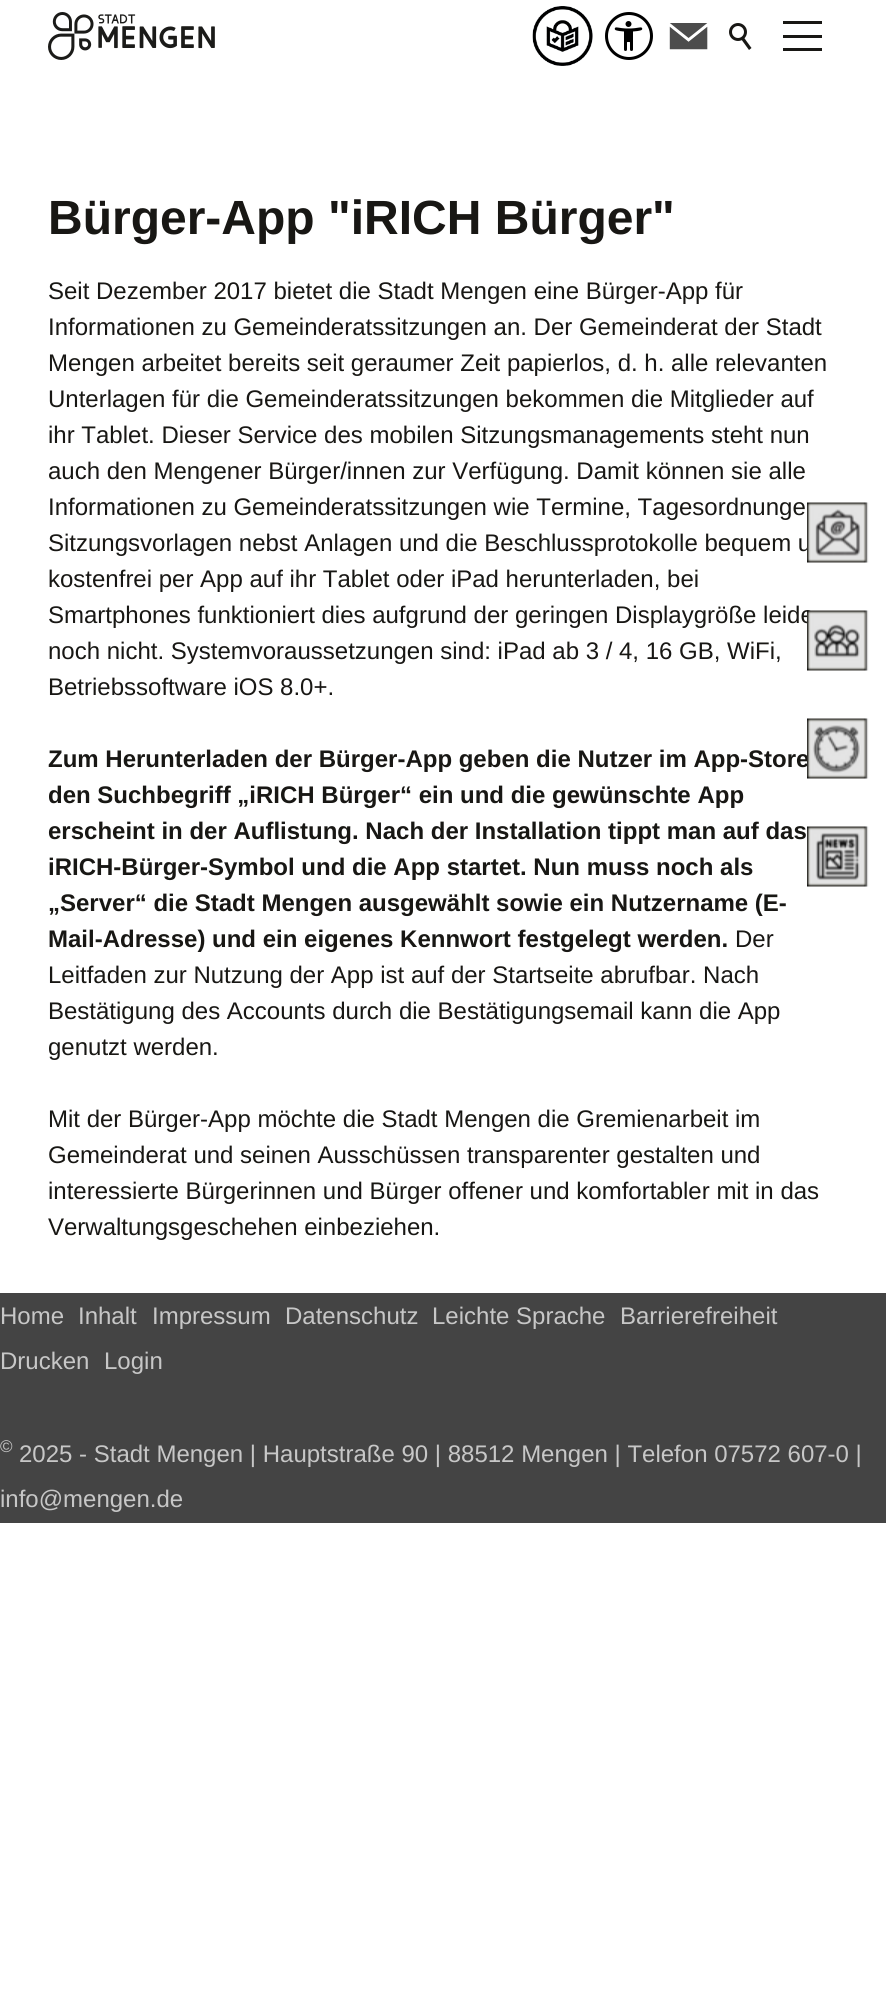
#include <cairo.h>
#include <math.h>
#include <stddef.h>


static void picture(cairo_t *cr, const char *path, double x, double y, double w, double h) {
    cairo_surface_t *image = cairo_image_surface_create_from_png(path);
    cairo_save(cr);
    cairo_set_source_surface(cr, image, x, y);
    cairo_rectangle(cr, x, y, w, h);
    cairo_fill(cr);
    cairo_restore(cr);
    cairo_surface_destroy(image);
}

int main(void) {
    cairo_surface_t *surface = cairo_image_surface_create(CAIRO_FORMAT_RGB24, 886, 2010);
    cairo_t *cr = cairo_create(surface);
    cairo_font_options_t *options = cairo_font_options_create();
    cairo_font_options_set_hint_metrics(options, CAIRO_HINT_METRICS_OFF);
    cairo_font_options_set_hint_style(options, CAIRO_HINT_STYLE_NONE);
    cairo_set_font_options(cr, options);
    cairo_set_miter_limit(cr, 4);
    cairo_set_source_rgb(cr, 1, 1, 1);
    cairo_paint(cr);
    picture(cr, "img1.png", 48, 12, 167, 48);
    picture(cr, "img2.png", 532, 6, 61, 60);
    picture(cr, "img3.png", 614, 21, 29, 30);
    cairo_arc(cr, 629, 36, 22.5, 0, 2 * M_PI);
    cairo_set_source_rgb(cr, 0, 0, 0);
    cairo_set_line_width(cr, 3);
    cairo_stroke(cr);
    picture(cr, "img4.png", 669, 23, 39, 27);
    cairo_arc(cr, 738, 32, 7.5, 0, 2 * M_PI);
    cairo_set_source_rgb(cr, 0.094, 0.09, 0.082);
    cairo_stroke(cr);
    cairo_new_path(cr);
    cairo_move_to(cr, 743.5, 37);
    cairo_line_to(cr, 751.5, 48);
    cairo_line_to(cr, 749, 50);
    cairo_line_to(cr, 741, 39);
    cairo_close_path(cr);
    cairo_fill(cr);
    cairo_rectangle(cr, 783, 21, 39, 3);
    cairo_fill(cr);
    cairo_rectangle(cr, 783, 35, 39, 3);
    cairo_fill(cr);
    cairo_rectangle(cr, 783, 48, 39, 3);
    cairo_fill(cr);
    cairo_select_font_face(cr, "Liberation Sans", CAIRO_FONT_SLANT_NORMAL, CAIRO_FONT_WEIGHT_BOLD);
    cairo_set_font_size(cr, 48);
    cairo_move_to(cr, 48, 234);
    cairo_show_text(cr, "Bürger-App \"iRICH Bürger\"");
    cairo_select_font_face(cr, "Liberation Sans", CAIRO_FONT_SLANT_NORMAL, CAIRO_FONT_WEIGHT_NORMAL);
    cairo_set_font_size(cr, 24);
    cairo_move_to(cr, 48, 299);
    cairo_show_text(cr, "Seit Dezember 2017 bietet die Stadt Mengen eine Bürger-App für");
    cairo_move_to(cr, 48, 335);
    cairo_show_text(cr, "Informationen zu Gemeinderatssitzungen an. Der Gemeinderat der Stadt");
    cairo_move_to(cr, 48, 371);
    cairo_show_text(cr, "Mengen arbeitet bereits seit geraumer Zeit papierlos, d. h. alle relevanten");
    cairo_move_to(cr, 48, 407);
    cairo_show_text(cr, "Unterlagen für die Gemeinderatssitzungen bekommen die Mitglieder auf");
    cairo_move_to(cr, 48, 443);
    cairo_show_text(cr, "ihr Tablet. Dieser Service des mobilen Sitzungsmanagements steht nun");
    cairo_move_to(cr, 48, 479);
    cairo_show_text(cr, "auch den Mengener Bürger/innen zur Verfügung. Damit können sie alle");
    cairo_move_to(cr, 48, 515);
    cairo_show_text(cr, "Informationen zu Gemeinderatssitzungen wie Termine, Tagesordnunge");
    cairo_move_to(cr, 48, 551);
    cairo_show_text(cr, "Sitzungsvorlagen nebst Anlagen und die Beschlussprotokolle bequem u");
    cairo_move_to(cr, 48, 587);
    cairo_show_text(cr, "kostenfrei per App auf ihr Tablet oder iPad herunterladen, bei");
    cairo_move_to(cr, 48, 623);
    cairo_show_text(cr, "Smartphones funktioniert dies aufgrund der geringen Displaygröße leide");
    cairo_move_to(cr, 48, 659);
    cairo_show_text(cr, "noch nicht. Systemvoraussetzungen sind: iPad ab 3 / 4, 16 GB, WiFi,");
    cairo_move_to(cr, 48, 695);
    cairo_show_text(cr, "Betriebssoftware iOS 8.0+.");
    cairo_select_font_face(cr, "Liberation Sans", CAIRO_FONT_SLANT_NORMAL, CAIRO_FONT_WEIGHT_BOLD);
    cairo_move_to(cr, 48, 767);
    cairo_show_text(cr, "Zum Herunterladen der Bürger-App geben die Nutzer im App-Store");
    cairo_move_to(cr, 48, 803);
    cairo_show_text(cr, "den Suchbegriff „iRICH Bürger“ ein und die gewünschte App");
    cairo_move_to(cr, 48, 839);
    cairo_show_text(cr, "erscheint in der Auflistung. Nach der Installation tippt man auf das");
    cairo_move_to(cr, 48, 875);
    cairo_show_text(cr, "iRICH-Bürger-Symbol und die App startet. Nun muss noch als");
    cairo_move_to(cr, 48, 911);
    cairo_show_text(cr, "„Server“ die Stadt Mengen ausgewählt sowie ein Nutzername (E-");
    cairo_move_to(cr, 48, 947);
    cairo_show_text(cr, "Mail-Adresse) und ein eigenes Kennwort festgelegt werden.");
    cairo_select_font_face(cr, "Liberation Sans", CAIRO_FONT_SLANT_NORMAL, CAIRO_FONT_WEIGHT_NORMAL);
    cairo_move_to(cr, 735, 947);
    cairo_show_text(cr, "Der");
    cairo_move_to(cr, 48, 983);
    cairo_show_text(cr, "Leitfaden zur Nutzung der App ist auf der Startseite abrufbar. Nach");
    cairo_move_to(cr, 48, 1019);
    cairo_show_text(cr, "Bestätigung des Accounts durch die Bestätigungsemail kann die App");
    cairo_move_to(cr, 48, 1055);
    cairo_show_text(cr, "genutzt werden.");
    cairo_move_to(cr, 48, 1127);
    cairo_show_text(cr, "Mit der Bürger-App möchte die Stadt Mengen die Gremienarbeit im");
    cairo_move_to(cr, 48, 1163);
    cairo_show_text(cr, "Gemeinderat und seinen Ausschüssen transparenter gestalten und");
    cairo_move_to(cr, 48, 1199);
    cairo_show_text(cr, "interessierte Bürgerinnen und Bürger offener und komfortabler mit in das");
    cairo_move_to(cr, 48, 1235);
    cairo_show_text(cr, "Verwaltungsgeschehen einbeziehen.");
    picture(cr, "img5.png", 807, 502, 62, 61);
    picture(cr, "img6.png", 807, 610, 62, 61);
    picture(cr, "img7.png", 807, 718, 62, 61);
    picture(cr, "img8.png", 807, 826, 62, 61);
    cairo_set_source_rgb(cr, 0.267, 0.267, 0.267);
    cairo_rectangle(cr, 0, 1293, 886, 230);
    cairo_fill(cr);
    cairo_set_source_rgb(cr, 0.78, 0.78, 0.78);
    cairo_move_to(cr, 0, 1324);
    cairo_show_text(cr, "Home");
    cairo_move_to(cr, 78, 1324);
    cairo_show_text(cr, "Inhalt");
    cairo_move_to(cr, 152, 1324);
    cairo_show_text(cr, "Impressum");
    cairo_move_to(cr, 285, 1324);
    cairo_show_text(cr, "Datenschutz");
    cairo_move_to(cr, 432, 1324);
    cairo_show_text(cr, "Leichte Sprache");
    cairo_move_to(cr, 620, 1324);
    cairo_show_text(cr, "Barrierefreiheit");
    cairo_move_to(cr, 0, 1369);
    cairo_show_text(cr, "Drucken");
    cairo_move_to(cr, 104, 1369);
    cairo_show_text(cr, "Login");
    cairo_set_font_size(cr, 17);
    cairo_move_to(cr, 0, 1452);
    cairo_show_text(cr, "©");
    cairo_set_font_size(cr, 24);
    cairo_move_to(cr, 19, 1462);
    cairo_show_text(cr, "2025 - Stadt Mengen | Hauptstraße 90 | 88512 Mengen | Telefon 07572 607-0 |");
    cairo_move_to(cr, 0, 1507);
    cairo_show_text(cr, "info@mengen.de");
    cairo_surface_write_to_png(surface, "page.png");
    cairo_font_options_destroy(options);
    cairo_destroy(cr);
    cairo_surface_destroy(surface);
    return 0;
}
